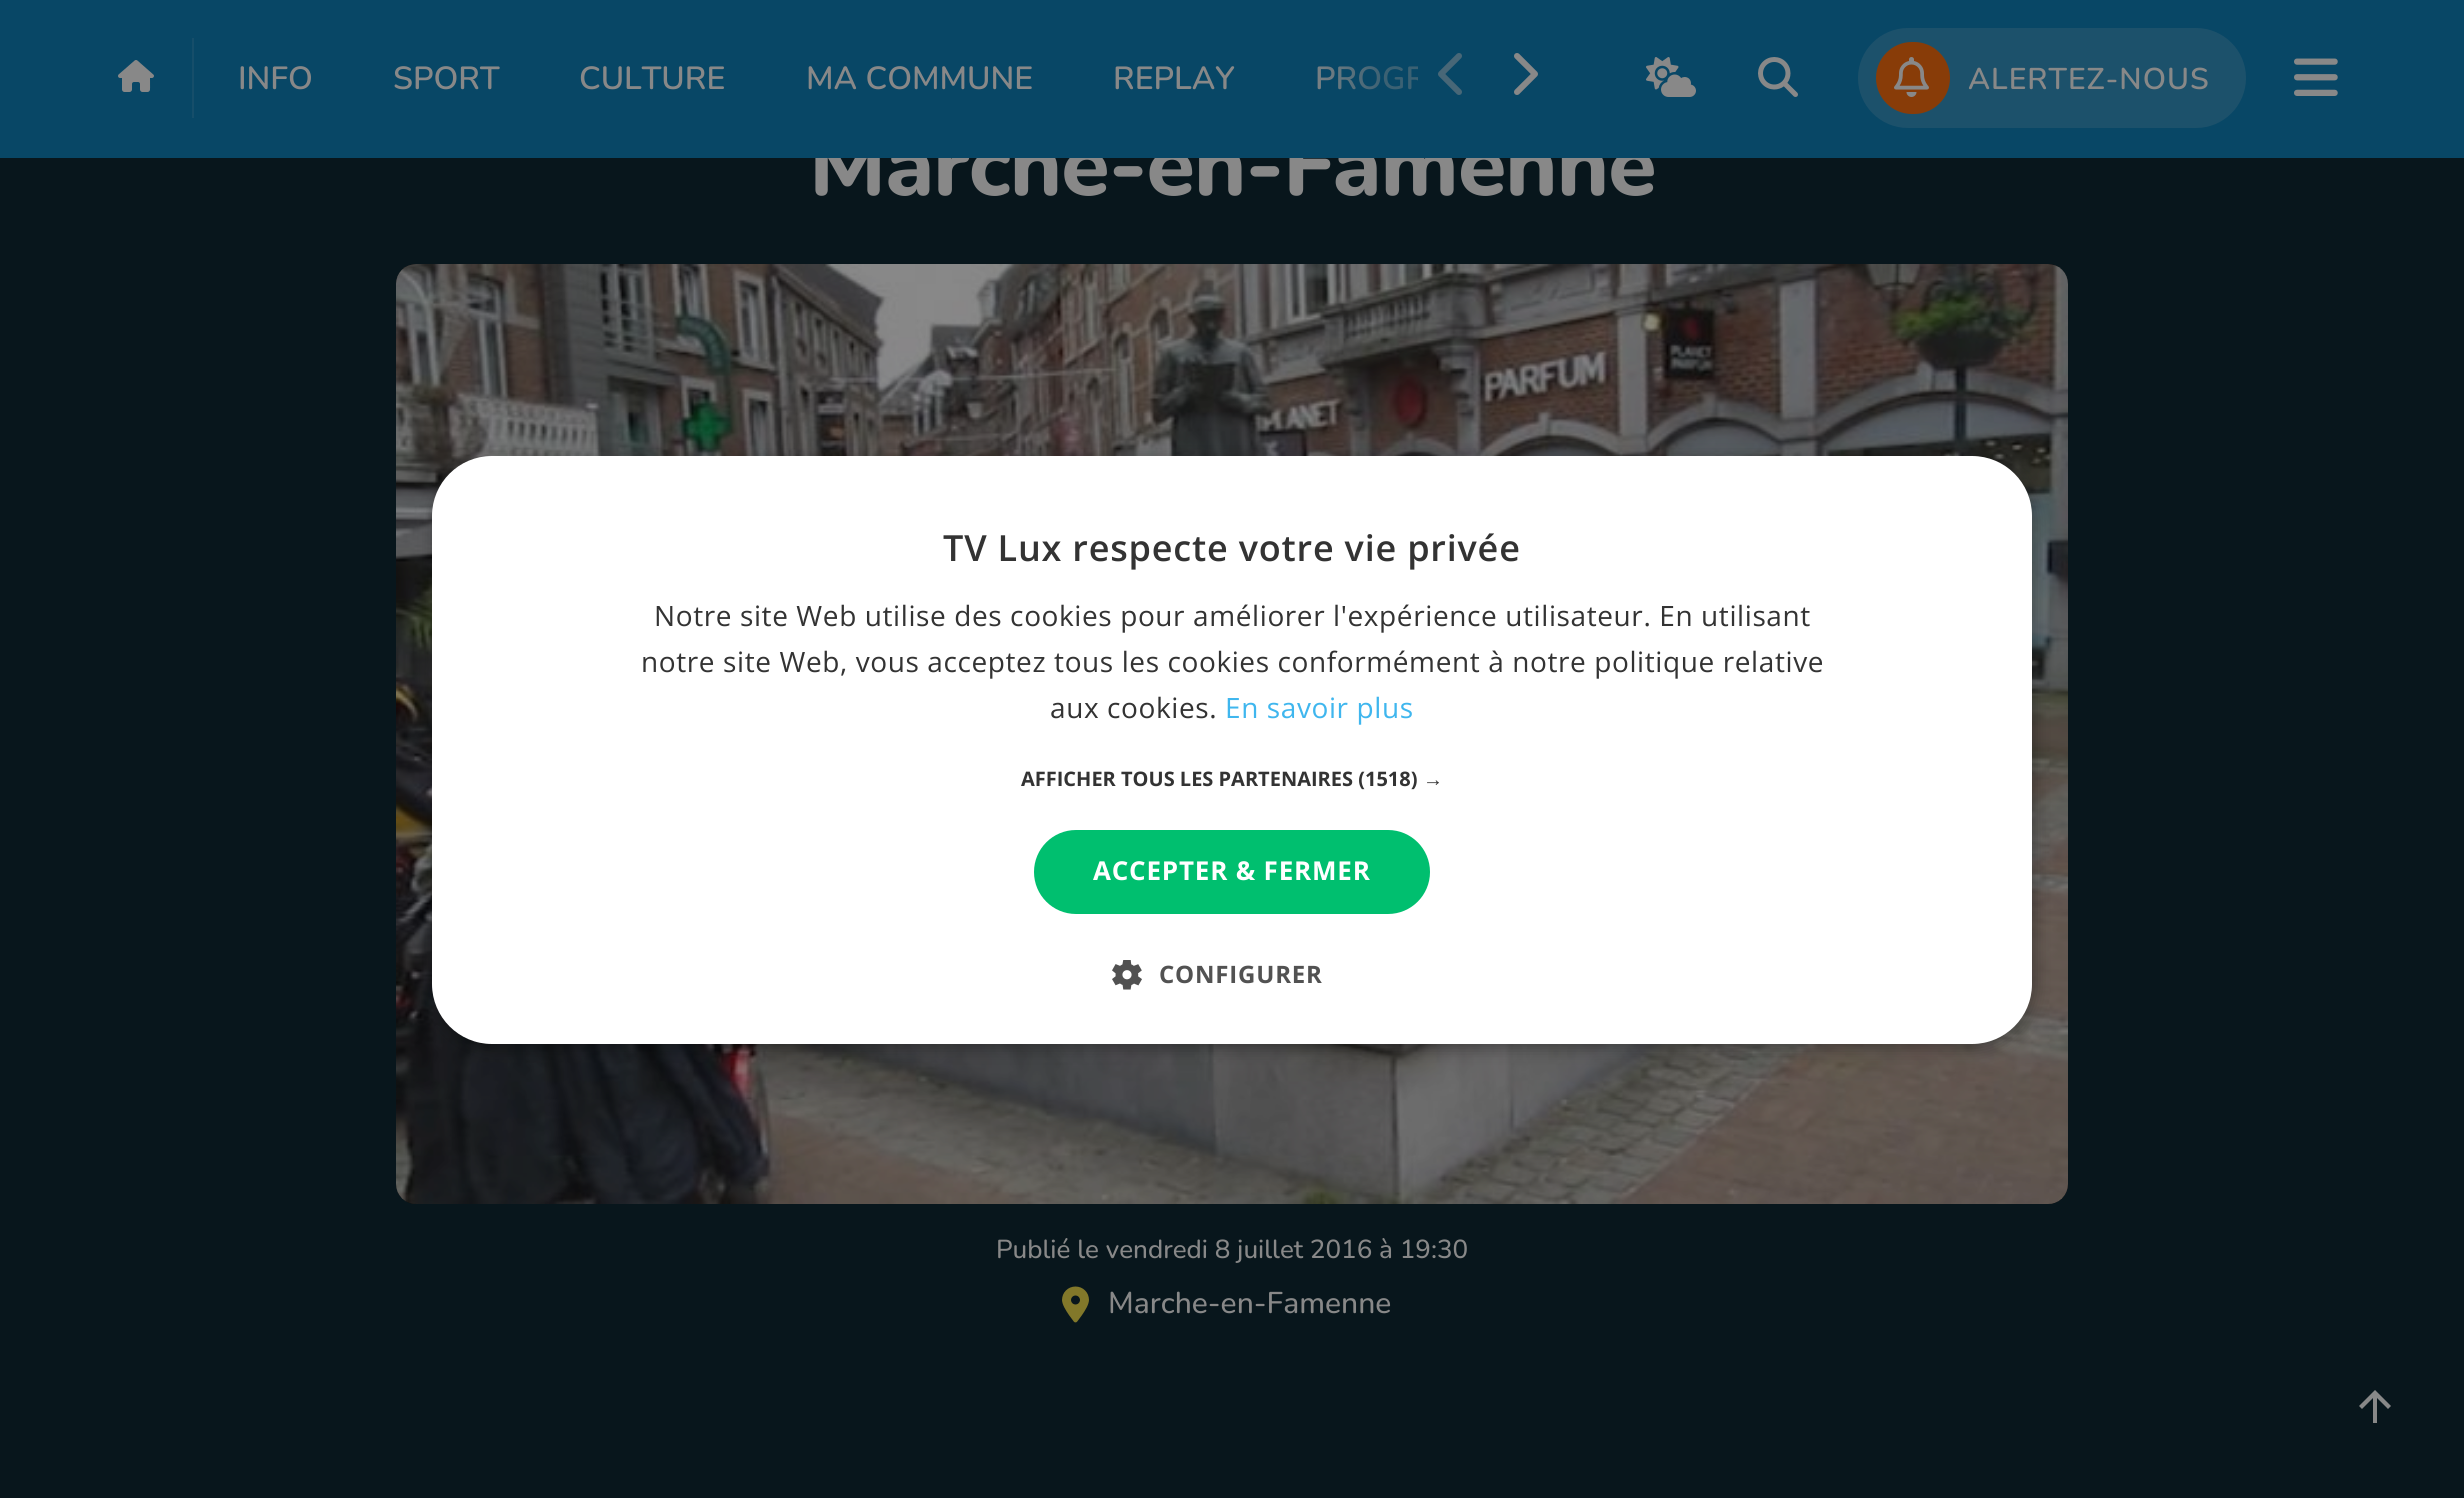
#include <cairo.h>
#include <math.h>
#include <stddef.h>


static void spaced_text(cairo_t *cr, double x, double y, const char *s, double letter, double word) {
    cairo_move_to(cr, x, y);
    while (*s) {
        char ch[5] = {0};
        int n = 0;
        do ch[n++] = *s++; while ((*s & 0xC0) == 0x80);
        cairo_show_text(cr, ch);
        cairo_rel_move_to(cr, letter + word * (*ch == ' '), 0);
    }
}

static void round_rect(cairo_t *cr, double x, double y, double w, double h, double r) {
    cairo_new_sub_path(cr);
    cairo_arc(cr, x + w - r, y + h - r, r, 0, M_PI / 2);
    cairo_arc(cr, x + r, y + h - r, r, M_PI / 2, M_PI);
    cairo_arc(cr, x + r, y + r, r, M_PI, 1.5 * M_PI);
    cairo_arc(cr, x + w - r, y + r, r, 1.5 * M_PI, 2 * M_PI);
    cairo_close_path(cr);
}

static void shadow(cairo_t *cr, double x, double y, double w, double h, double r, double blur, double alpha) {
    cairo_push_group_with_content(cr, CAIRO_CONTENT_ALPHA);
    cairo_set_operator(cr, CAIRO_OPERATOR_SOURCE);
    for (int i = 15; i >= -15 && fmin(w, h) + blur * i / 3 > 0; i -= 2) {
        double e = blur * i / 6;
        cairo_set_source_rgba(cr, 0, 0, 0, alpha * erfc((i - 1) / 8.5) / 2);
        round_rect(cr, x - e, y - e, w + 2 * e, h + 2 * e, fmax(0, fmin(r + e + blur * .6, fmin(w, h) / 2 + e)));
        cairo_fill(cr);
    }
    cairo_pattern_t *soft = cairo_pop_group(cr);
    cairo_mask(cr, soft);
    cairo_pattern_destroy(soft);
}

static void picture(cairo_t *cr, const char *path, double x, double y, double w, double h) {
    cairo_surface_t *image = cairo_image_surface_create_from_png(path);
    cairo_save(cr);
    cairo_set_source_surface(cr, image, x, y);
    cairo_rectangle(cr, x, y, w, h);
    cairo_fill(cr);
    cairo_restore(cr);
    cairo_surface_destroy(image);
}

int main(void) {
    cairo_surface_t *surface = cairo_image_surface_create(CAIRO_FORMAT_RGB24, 2464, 1498);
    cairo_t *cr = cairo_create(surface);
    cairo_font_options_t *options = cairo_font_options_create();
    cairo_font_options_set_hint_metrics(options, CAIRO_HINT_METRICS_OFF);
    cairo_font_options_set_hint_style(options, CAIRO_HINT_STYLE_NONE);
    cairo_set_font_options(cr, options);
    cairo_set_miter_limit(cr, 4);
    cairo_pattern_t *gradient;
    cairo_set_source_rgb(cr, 0.035, 0.086, 0.11);
    cairo_paint(cr);
    cairo_select_font_face(cr, "Nunito ExtraBold", CAIRO_FONT_SLANT_NORMAL, CAIRO_FONT_WEIGHT_NORMAL);
    cairo_set_font_size(cr, 88);
    cairo_set_source_rgb(cr, 0.533, 0.533, 0.533);
    spaced_text(cr, 809, 195, "Marche-en-Famenne", -0.9, 0);
    cairo_set_source_rgb(cr, 0.035, 0.278, 0.4);
    cairo_rectangle(cr, 0, 0, 2464, 158);
    cairo_fill(cr);
    cairo_set_source_rgb(cr, 0.086, 0.306, 0.416);
    cairo_rectangle(cr, 192, 38, 2, 80);
    cairo_fill(cr);
    picture(cr, "img1.png", 118, 60, 36, 32);
    cairo_select_font_face(cr, "Nunito SemiBold", CAIRO_FONT_SLANT_NORMAL, CAIRO_FONT_WEIGHT_NORMAL);
    cairo_set_font_size(cr, 32);
    cairo_set_source_rgb(cr, 0.533, 0.533, 0.533);
    cairo_move_to(cr, 238, 89);
    cairo_show_text(cr, "INFO");
    cairo_move_to(cr, 393, 89);
    cairo_show_text(cr, "SPORT");
    cairo_move_to(cr, 579, 89);
    cairo_show_text(cr, "CULTURE");
    cairo_move_to(cr, 806, 89);
    cairo_show_text(cr, "MA COMMUNE");
    cairo_move_to(cr, 1113, 89);
    cairo_show_text(cr, "REPLAY");
    cairo_save(cr);
    cairo_rectangle(cr, 118, 38, 1300, 80);
    cairo_clip(cr);
    cairo_move_to(cr, 1315, 89);
    cairo_show_text(cr, "PROGR");
    cairo_restore(cr);
    gradient = cairo_pattern_create_linear(1300, 73, 1420, 73);
    cairo_pattern_add_color_stop_rgba(gradient, 0, 0.035, 0.278, 0.4, 0);
    cairo_pattern_add_color_stop_rgba(gradient, 0.7, 0.035, 0.278, 0.4, 0.6);
    cairo_set_source(cr, gradient);
    cairo_pattern_destroy(gradient);
    cairo_rectangle(cr, 1317, 66, 101, 24);
    cairo_fill(cr);
    picture(cr, "img2.png", 1438, 53, 24, 42);
    picture(cr, "img3.png", 1514, 53, 24, 42);
    picture(cr, "img4.png", 1646, 57, 50, 40);
    picture(cr, "img5.png", 1758, 57, 40, 40);
    cairo_set_source_rgb(cr, 0.11, 0.318, 0.42);
    round_rect(cr, 1858, 28, 388, 100, 50);
    cairo_fill(cr);
    cairo_set_source_rgb(cr, 0.533, 0.235, 0.035);
    round_rect(cr, 1876, 42, 74, 72, 36);
    cairo_fill(cr);
    picture(cr, "img6.png", 1894, 57, 35, 40);
    cairo_set_font_size(cr, 30);
    cairo_set_source_rgb(cr, 0.533, 0.533, 0.533);
    spaced_text(cr, 1968, 89, "ALERTEZ-NOUS", 1, 0);
    picture(cr, "img7.png", 2294, 58, 44, 38);
    cairo_set_source_rgb(cr, 0.035, 0.035, 0.035);
    round_rect(cr, 396, 264, 1672, 940, 20);
    cairo_fill(cr);
    picture(cr, "img8.png", 396, 264, 1672, 940);
    cairo_select_font_face(cr, "Nunito Medium", CAIRO_FONT_SLANT_NORMAL, CAIRO_FONT_WEIGHT_NORMAL);
    cairo_set_font_size(cr, 26);
    cairo_set_source_rgb(cr, 0.533, 0.533, 0.533);
    cairo_move_to(cr, 996, 1258);
    cairo_show_text(cr, "Publié le vendredi 8 juillet 2016 à 19:30");
    picture(cr, "img9.png", 1062, 1286, 27, 37);
    cairo_set_font_size(cr, 30);
    cairo_move_to(cr, 1108, 1313);
    cairo_show_text(cr, "Marche-en-Famenne");
    cairo_set_source_rgb(cr, 0, 0, 0);
    shadow(cr, 434, 460, 1600, 588, 60, 8, 0.35);
    cairo_set_source_rgb(cr, 1, 1, 1);
    round_rect(cr, 432, 456, 1600, 588, 60);
    cairo_fill(cr);
    cairo_select_font_face(cr, "Open Sans SemiBold", CAIRO_FONT_SLANT_NORMAL, CAIRO_FONT_WEIGHT_NORMAL);
    cairo_set_font_size(cr, 36);
    cairo_set_source_rgb(cr, 0.2, 0.2, 0.2);
    spaced_text(cr, 943, 561, "TV Lux respecte votre vie privée", 0.8, 0);
    cairo_select_font_face(cr, "Open Sans", CAIRO_FONT_SLANT_NORMAL, CAIRO_FONT_WEIGHT_NORMAL);
    cairo_set_font_size(cr, 28);
    spaced_text(cr, 654, 626, "Notre site Web utilise des cookies pour améliorer l'expérience utilisateur. En utilisant", 0.6, 0);
    spaced_text(cr, 641, 672, "notre site Web, vous acceptez tous les cookies conformément à notre politique relative", 0.6, 0);
    spaced_text(cr, 1050, 718, "aux cookies.", 0.6, 0);
    cairo_set_source_rgb(cr, 0.247, 0.714, 0.933);
    spaced_text(cr, 1225, 718, "En savoir plus", 0.6, 0);
    cairo_select_font_face(cr, "Open Sans", CAIRO_FONT_SLANT_NORMAL, CAIRO_FONT_WEIGHT_BOLD);
    cairo_set_font_size(cr, 20);
    cairo_set_source_rgb(cr, 0.2, 0.2, 0.2);
    cairo_move_to(cr, 1021, 786);
    cairo_show_text(cr, "AFFICHER TOUS LES PARTENAIRES (1518)");
    cairo_select_font_face(cr, "Liberation Sans", CAIRO_FONT_SLANT_NORMAL, CAIRO_FONT_WEIGHT_BOLD);
    cairo_move_to(cr, 1423, 786);
    cairo_show_text(cr, "→");
    cairo_set_source_rgb(cr, 0, 0.749, 0.435);
    round_rect(cr, 1034, 830, 396, 84, 42);
    cairo_fill(cr);
    cairo_select_font_face(cr, "Open Sans", CAIRO_FONT_SLANT_NORMAL, CAIRO_FONT_WEIGHT_BOLD);
    cairo_set_font_size(cr, 26);
    cairo_set_source_rgb(cr, 1, 1, 1);
    spaced_text(cr, 1093, 880, "ACCEPTER & FERMER", 0.8, 0);
    picture(cr, "img10.png", 1112, 960, 30, 30);
    cairo_set_font_size(cr, 24);
    cairo_set_source_rgb(cr, 0.322, 0.322, 0.322);
    spaced_text(cr, 1159, 983, "CONFIGURER", 0.8, 0);
    cairo_set_source_rgb(cr, 0.533, 0.533, 0.533);
    cairo_new_path(cr);
    cairo_move_to(cr, 2377, 1398);
    cairo_line_to(cr, 2377, 1423);
    cairo_line_to(cr, 2373, 1423);
    cairo_line_to(cr, 2373, 1398);
    cairo_line_to(cr, 2362, 1409);
    cairo_line_to(cr, 2359, 1406);
    cairo_line_to(cr, 2375, 1390);
    cairo_line_to(cr, 2391, 1406);
    cairo_line_to(cr, 2388, 1409);
    cairo_close_path(cr);
    cairo_fill(cr);
    cairo_surface_write_to_png(surface, "page.png");
    cairo_font_options_destroy(options);
    cairo_destroy(cr);
    cairo_surface_destroy(surface);
    return 0;
}
